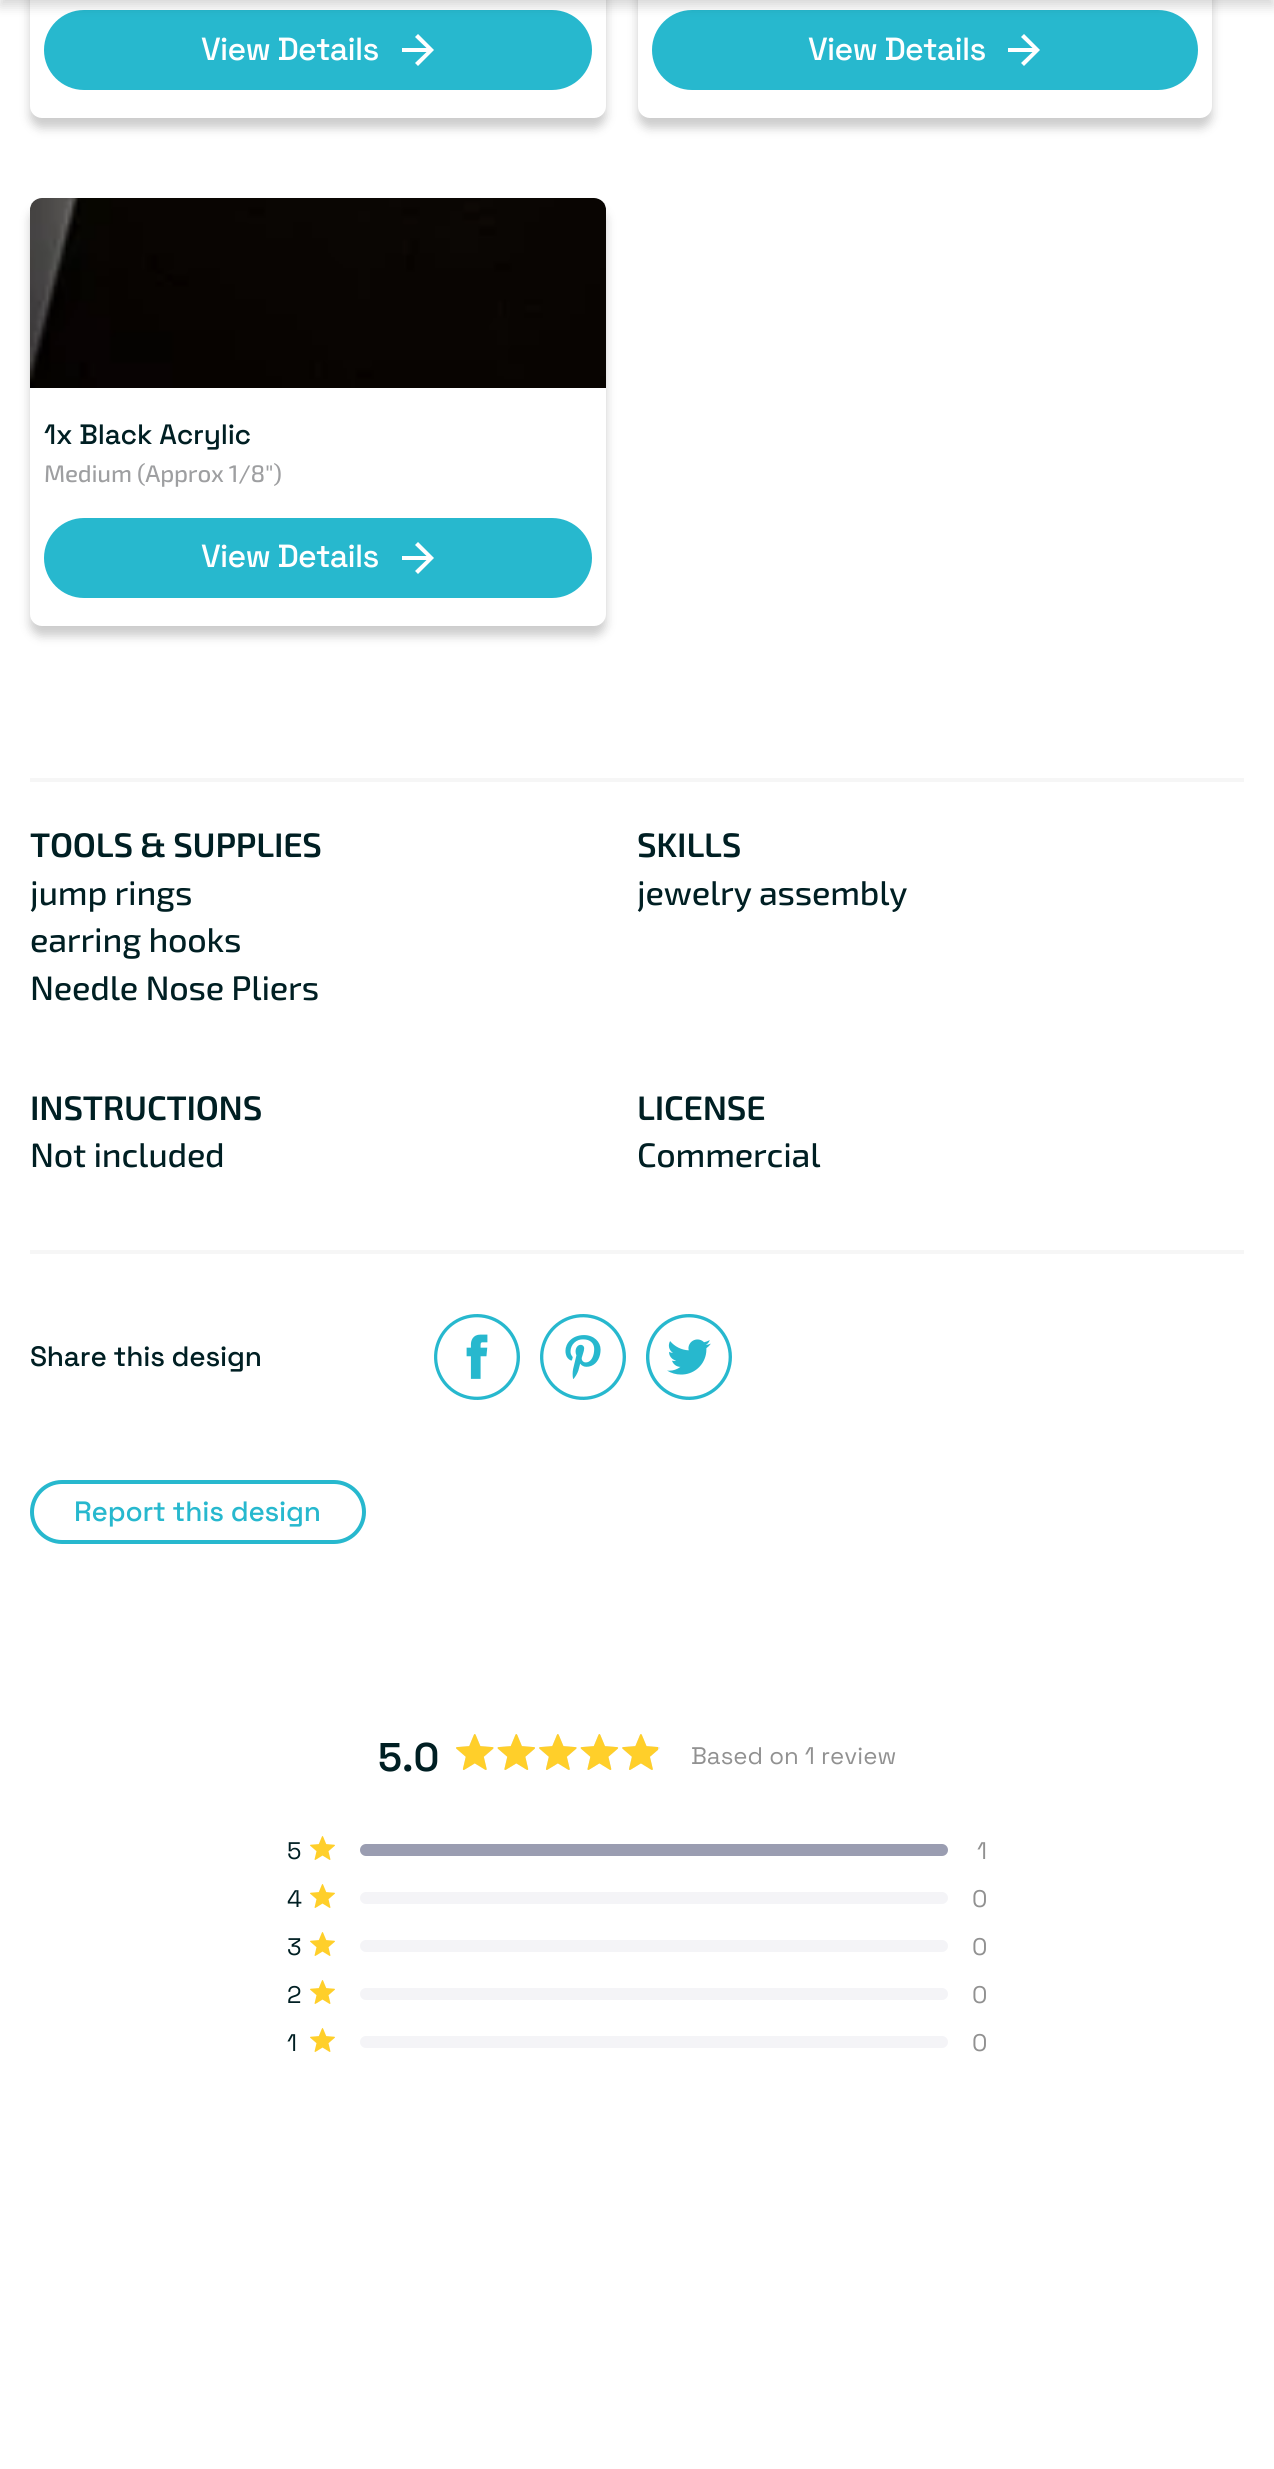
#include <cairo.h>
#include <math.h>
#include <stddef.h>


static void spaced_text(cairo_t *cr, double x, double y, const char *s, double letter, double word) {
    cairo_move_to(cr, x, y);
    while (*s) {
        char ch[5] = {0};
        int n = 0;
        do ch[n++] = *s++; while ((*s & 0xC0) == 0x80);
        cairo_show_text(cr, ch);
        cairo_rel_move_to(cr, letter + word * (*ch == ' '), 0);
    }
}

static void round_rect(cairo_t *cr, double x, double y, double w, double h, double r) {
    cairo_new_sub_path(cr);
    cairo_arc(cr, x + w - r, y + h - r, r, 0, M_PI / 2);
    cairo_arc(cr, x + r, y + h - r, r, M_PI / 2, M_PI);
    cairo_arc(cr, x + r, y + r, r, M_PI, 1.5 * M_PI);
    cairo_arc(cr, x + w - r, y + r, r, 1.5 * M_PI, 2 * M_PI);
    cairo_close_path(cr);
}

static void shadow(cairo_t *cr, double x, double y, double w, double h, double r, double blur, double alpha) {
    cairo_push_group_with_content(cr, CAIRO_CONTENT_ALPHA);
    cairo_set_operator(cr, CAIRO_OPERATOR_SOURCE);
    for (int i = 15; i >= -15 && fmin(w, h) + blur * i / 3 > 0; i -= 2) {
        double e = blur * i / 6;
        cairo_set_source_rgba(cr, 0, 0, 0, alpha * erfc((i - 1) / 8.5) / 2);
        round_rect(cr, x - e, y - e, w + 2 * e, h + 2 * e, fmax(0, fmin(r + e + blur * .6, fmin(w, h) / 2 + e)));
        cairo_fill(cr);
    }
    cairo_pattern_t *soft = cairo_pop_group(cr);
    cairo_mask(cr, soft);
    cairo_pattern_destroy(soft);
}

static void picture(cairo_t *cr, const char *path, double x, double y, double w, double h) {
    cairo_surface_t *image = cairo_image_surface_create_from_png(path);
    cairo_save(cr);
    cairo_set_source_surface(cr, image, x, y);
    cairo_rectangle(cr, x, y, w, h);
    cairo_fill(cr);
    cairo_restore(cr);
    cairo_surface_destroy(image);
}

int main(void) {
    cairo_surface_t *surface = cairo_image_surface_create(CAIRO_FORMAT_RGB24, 1274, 2469);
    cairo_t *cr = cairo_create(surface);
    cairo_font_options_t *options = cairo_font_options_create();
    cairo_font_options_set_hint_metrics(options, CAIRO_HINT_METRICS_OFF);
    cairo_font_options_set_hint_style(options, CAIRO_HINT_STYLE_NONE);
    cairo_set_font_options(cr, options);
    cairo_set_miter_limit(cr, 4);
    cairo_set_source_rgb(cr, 1, 1, 1);
    cairo_paint(cr);
    cairo_set_source_rgb(cr, 0, 0, 0);
    shadow(cr, 30, -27, 576, 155, 12, 5, 0.2);
    cairo_set_source_rgb(cr, 1, 1, 1);
    round_rect(cr, 30, -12, 576, 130, 12);
    cairo_fill(cr);
    cairo_set_source_rgb(cr, 0.153, 0.722, 0.808);
    round_rect(cr, 44, 10, 548, 80, 40);
    cairo_fill(cr);
    cairo_set_source_rgb(cr, 0, 0, 0);
    shadow(cr, 638, -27, 574, 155, 12, 5, 0.2);
    cairo_set_source_rgb(cr, 1, 1, 1);
    round_rect(cr, 638, -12, 574, 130, 12);
    cairo_fill(cr);
    cairo_set_source_rgb(cr, 0.153, 0.722, 0.808);
    round_rect(cr, 652, 10, 546, 80, 40);
    cairo_fill(cr);
    cairo_set_source_rgb(cr, 0, 0, 0);
    shadow(cr, 0, -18, 1274, 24, 0, 6, 0.16);
    cairo_set_source_rgb(cr, 0.961, 0.961, 0.961);
    cairo_rectangle(cr, 30, 778, 1214, 4);
    cairo_fill(cr);
    cairo_select_font_face(cr, "Space Grotesk Medium", CAIRO_FONT_SLANT_NORMAL, CAIRO_FONT_WEIGHT_NORMAL);
    cairo_set_font_size(cr, 32);
    cairo_set_source_rgb(cr, 1, 1, 1);
    spaced_text(cr, 201, 60, "View Details", -0.75, 0);
    cairo_set_fill_rule(cr, CAIRO_FILL_RULE_EVEN_ODD);
    cairo_new_path(cr);
    cairo_move_to(cr, 402, 52);
    cairo_line_to(cr, 426.5, 52);
    cairo_line_to(cr, 415, 63);
    cairo_line_to(cr, 418, 66);
    cairo_line_to(cr, 434, 50);
    cairo_line_to(cr, 418, 34);
    cairo_line_to(cr, 415, 37);
    cairo_line_to(cr, 426.5, 48);
    cairo_line_to(cr, 402, 48);
    cairo_close_path(cr);
    cairo_fill(cr);
    spaced_text(cr, 808, 60, "View Details", -0.75, 0);
    cairo_new_path(cr);
    cairo_move_to(cr, 1008, 52);
    cairo_line_to(cr, 1032.5, 52);
    cairo_line_to(cr, 1021, 63);
    cairo_line_to(cr, 1024, 66);
    cairo_line_to(cr, 1040, 50);
    cairo_line_to(cr, 1024, 34);
    cairo_line_to(cr, 1021, 37);
    cairo_line_to(cr, 1032.5, 48);
    cairo_line_to(cr, 1008, 48);
    cairo_close_path(cr);
    cairo_fill(cr);
    cairo_set_source_rgb(cr, 0, 0, 0);
    shadow(cr, 30, 208, 576, 428, 12, 5, 0.2);
    cairo_set_source_rgb(cr, 1, 1, 1);
    round_rect(cr, 30, 198, 576, 428, 12);
    cairo_fill(cr);
    picture(cr, "img1.png", 30, 198, 576, 190);
    cairo_set_font_size(cr, 28);
    cairo_set_source_rgb(cr, 0, 0.122, 0.137);
    spaced_text(cr, 44, 444, "1x Black Acrylic", -0.2, 0);
    cairo_select_font_face(cr, "Exo 2 Medium", CAIRO_FONT_SLANT_NORMAL, CAIRO_FONT_WEIGHT_NORMAL);
    cairo_set_font_size(cr, 24);
    cairo_set_source_rgb(cr, 0.62, 0.624, 0.631);
    spaced_text(cr, 44, 482, "Medium (Approx 1/8\")", -0.2, 0);
    cairo_set_source_rgb(cr, 0.153, 0.722, 0.808);
    round_rect(cr, 44, 518, 548, 80, 40);
    cairo_fill(cr);
    cairo_select_font_face(cr, "Space Grotesk Medium", CAIRO_FONT_SLANT_NORMAL, CAIRO_FONT_WEIGHT_NORMAL);
    cairo_set_font_size(cr, 32);
    cairo_set_source_rgb(cr, 1, 1, 1);
    spaced_text(cr, 201, 567, "View Details", -0.75, 0);
    cairo_new_path(cr);
    cairo_move_to(cr, 402, 560);
    cairo_line_to(cr, 426.5, 560);
    cairo_line_to(cr, 415, 571);
    cairo_line_to(cr, 418, 574);
    cairo_line_to(cr, 434, 558);
    cairo_line_to(cr, 418, 542);
    cairo_line_to(cr, 415, 545);
    cairo_line_to(cr, 426.5, 556);
    cairo_line_to(cr, 402, 556);
    cairo_close_path(cr);
    cairo_fill(cr);
    cairo_set_source_rgb(cr, 0.961, 0.961, 0.961);
    cairo_rectangle(cr, 30, 1250, 1214, 4);
    cairo_fill(cr);
    cairo_select_font_face(cr, "Exo 2 SemiBold", CAIRO_FONT_SLANT_NORMAL, CAIRO_FONT_WEIGHT_NORMAL);
    cairo_set_font_size(cr, 34);
    cairo_set_source_rgb(cr, 0, 0.122, 0.137);
    spaced_text(cr, 30, 857, "TOOLS & SUPPLIES", -0.2, 0);
    cairo_select_font_face(cr, "Exo 2 Medium", CAIRO_FONT_SLANT_NORMAL, CAIRO_FONT_WEIGHT_NORMAL);
    spaced_text(cr, 30, 905, "jump rings", -0.2, 0);
    spaced_text(cr, 30, 952, "earring hooks", -0.2, 0);
    spaced_text(cr, 30, 1000, "Needle Nose Pliers", -0.2, 0);
    cairo_select_font_face(cr, "Exo 2 SemiBold", CAIRO_FONT_SLANT_NORMAL, CAIRO_FONT_WEIGHT_NORMAL);
    spaced_text(cr, 637, 857, "SKILLS", -0.2, 0);
    cairo_select_font_face(cr, "Exo 2 Medium", CAIRO_FONT_SLANT_NORMAL, CAIRO_FONT_WEIGHT_NORMAL);
    spaced_text(cr, 637, 905, "jewelry assembly", -0.2, 0);
    cairo_select_font_face(cr, "Exo 2 SemiBold", CAIRO_FONT_SLANT_NORMAL, CAIRO_FONT_WEIGHT_NORMAL);
    spaced_text(cr, 30, 1120, "INSTRUCTIONS", -0.2, 0);
    cairo_select_font_face(cr, "Exo 2 Medium", CAIRO_FONT_SLANT_NORMAL, CAIRO_FONT_WEIGHT_NORMAL);
    spaced_text(cr, 30, 1167, "Not included", -0.2, 0);
    cairo_select_font_face(cr, "Exo 2 SemiBold", CAIRO_FONT_SLANT_NORMAL, CAIRO_FONT_WEIGHT_NORMAL);
    spaced_text(cr, 637, 1120, "LICENSE", -0.2, 0);
    cairo_select_font_face(cr, "Exo 2 Medium", CAIRO_FONT_SLANT_NORMAL, CAIRO_FONT_WEIGHT_NORMAL);
    spaced_text(cr, 637, 1167, "Commercial", -0.2, 0);
    cairo_select_font_face(cr, "Space Grotesk Medium", CAIRO_FONT_SLANT_NORMAL, CAIRO_FONT_WEIGHT_NORMAL);
    cairo_set_font_size(cr, 28);
    spaced_text(cr, 30, 1366, "Share this design", -0.2, 0);
    picture(cr, "img2.png", 434, 1314, 86, 86);
    picture(cr, "img3.png", 540, 1314, 86, 86);
    picture(cr, "img4.png", 646, 1314, 86, 86);
    round_rect(cr, 32, 1482, 332, 60, 30);
    cairo_set_source_rgb(cr, 0.153, 0.722, 0.808);
    cairo_set_line_width(cr, 4);
    cairo_stroke(cr);
    spaced_text(cr, 74, 1521, "Report this design", -0.2, 0);
    cairo_select_font_face(cr, "Space Grotesk SemiBold", CAIRO_FONT_SLANT_NORMAL, CAIRO_FONT_WEIGHT_NORMAL);
    cairo_set_font_size(cr, 40);
    cairo_set_source_rgb(cr, 0, 0.122, 0.137);
    cairo_move_to(cr, 378, 1771);
    cairo_show_text(cr, "5.0");
    picture(cr, "img5.png", 456, 1734, 204, 36);
    picture(cr, "img6.png", 456, 1734, 202, 36);
    cairo_select_font_face(cr, "Space Grotesk", CAIRO_FONT_SLANT_NORMAL, CAIRO_FONT_WEIGHT_NORMAL);
    cairo_set_font_size(cr, 24);
    cairo_set_source_rgb(cr, 0.569, 0.569, 0.569);
    cairo_move_to(cr, 691, 1764);
    cairo_show_text(cr, "Based on 1 review");
    cairo_set_source_rgb(cr, 0, 0.122, 0.137);
    cairo_move_to(cr, 287, 1859);
    cairo_show_text(cr, "5");
    picture(cr, "img7.png", 310, 1836, 25, 24);
    cairo_set_source_rgb(cr, 0.604, 0.616, 0.694);
    round_rect(cr, 360, 1844, 588, 12, 6);
    cairo_fill(cr);
    cairo_set_source_rgb(cr, 0.569, 0.569, 0.569);
    cairo_move_to(cr, 977, 1859);
    cairo_show_text(cr, "1");
    cairo_set_source_rgb(cr, 0, 0.122, 0.137);
    cairo_move_to(cr, 287, 1907);
    cairo_show_text(cr, "4");
    picture(cr, "img7.png", 310, 1884, 25, 24);
    cairo_set_source_rgb(cr, 0.957, 0.957, 0.965);
    round_rect(cr, 360, 1892, 588, 12, 6);
    cairo_fill(cr);
    cairo_set_source_rgb(cr, 0.569, 0.569, 0.569);
    cairo_move_to(cr, 972, 1907);
    cairo_show_text(cr, "0");
    cairo_set_source_rgb(cr, 0, 0.122, 0.137);
    cairo_move_to(cr, 287, 1955);
    cairo_show_text(cr, "3");
    picture(cr, "img7.png", 310, 1932, 25, 24);
    cairo_set_source_rgb(cr, 0.957, 0.957, 0.965);
    round_rect(cr, 360, 1940, 588, 12, 6);
    cairo_fill(cr);
    cairo_set_source_rgb(cr, 0.569, 0.569, 0.569);
    cairo_move_to(cr, 972, 1955);
    cairo_show_text(cr, "0");
    cairo_set_source_rgb(cr, 0, 0.122, 0.137);
    cairo_move_to(cr, 287, 2003);
    cairo_show_text(cr, "2");
    picture(cr, "img7.png", 310, 1980, 25, 24);
    cairo_set_source_rgb(cr, 0.957, 0.957, 0.965);
    round_rect(cr, 360, 1988, 588, 12, 6);
    cairo_fill(cr);
    cairo_set_source_rgb(cr, 0.569, 0.569, 0.569);
    cairo_move_to(cr, 972, 2003);
    cairo_show_text(cr, "0");
    cairo_set_source_rgb(cr, 0, 0.122, 0.137);
    cairo_move_to(cr, 287, 2051);
    cairo_show_text(cr, "1");
    picture(cr, "img7.png", 310, 2028, 25, 24);
    cairo_set_source_rgb(cr, 0.957, 0.957, 0.965);
    round_rect(cr, 360, 2036, 588, 12, 6);
    cairo_fill(cr);
    cairo_set_source_rgb(cr, 0.569, 0.569, 0.569);
    cairo_move_to(cr, 972, 2051);
    cairo_show_text(cr, "0");
    cairo_surface_write_to_png(surface, "page.png");
    cairo_font_options_destroy(options);
    cairo_destroy(cr);
    cairo_surface_destroy(surface);
    return 0;
}
